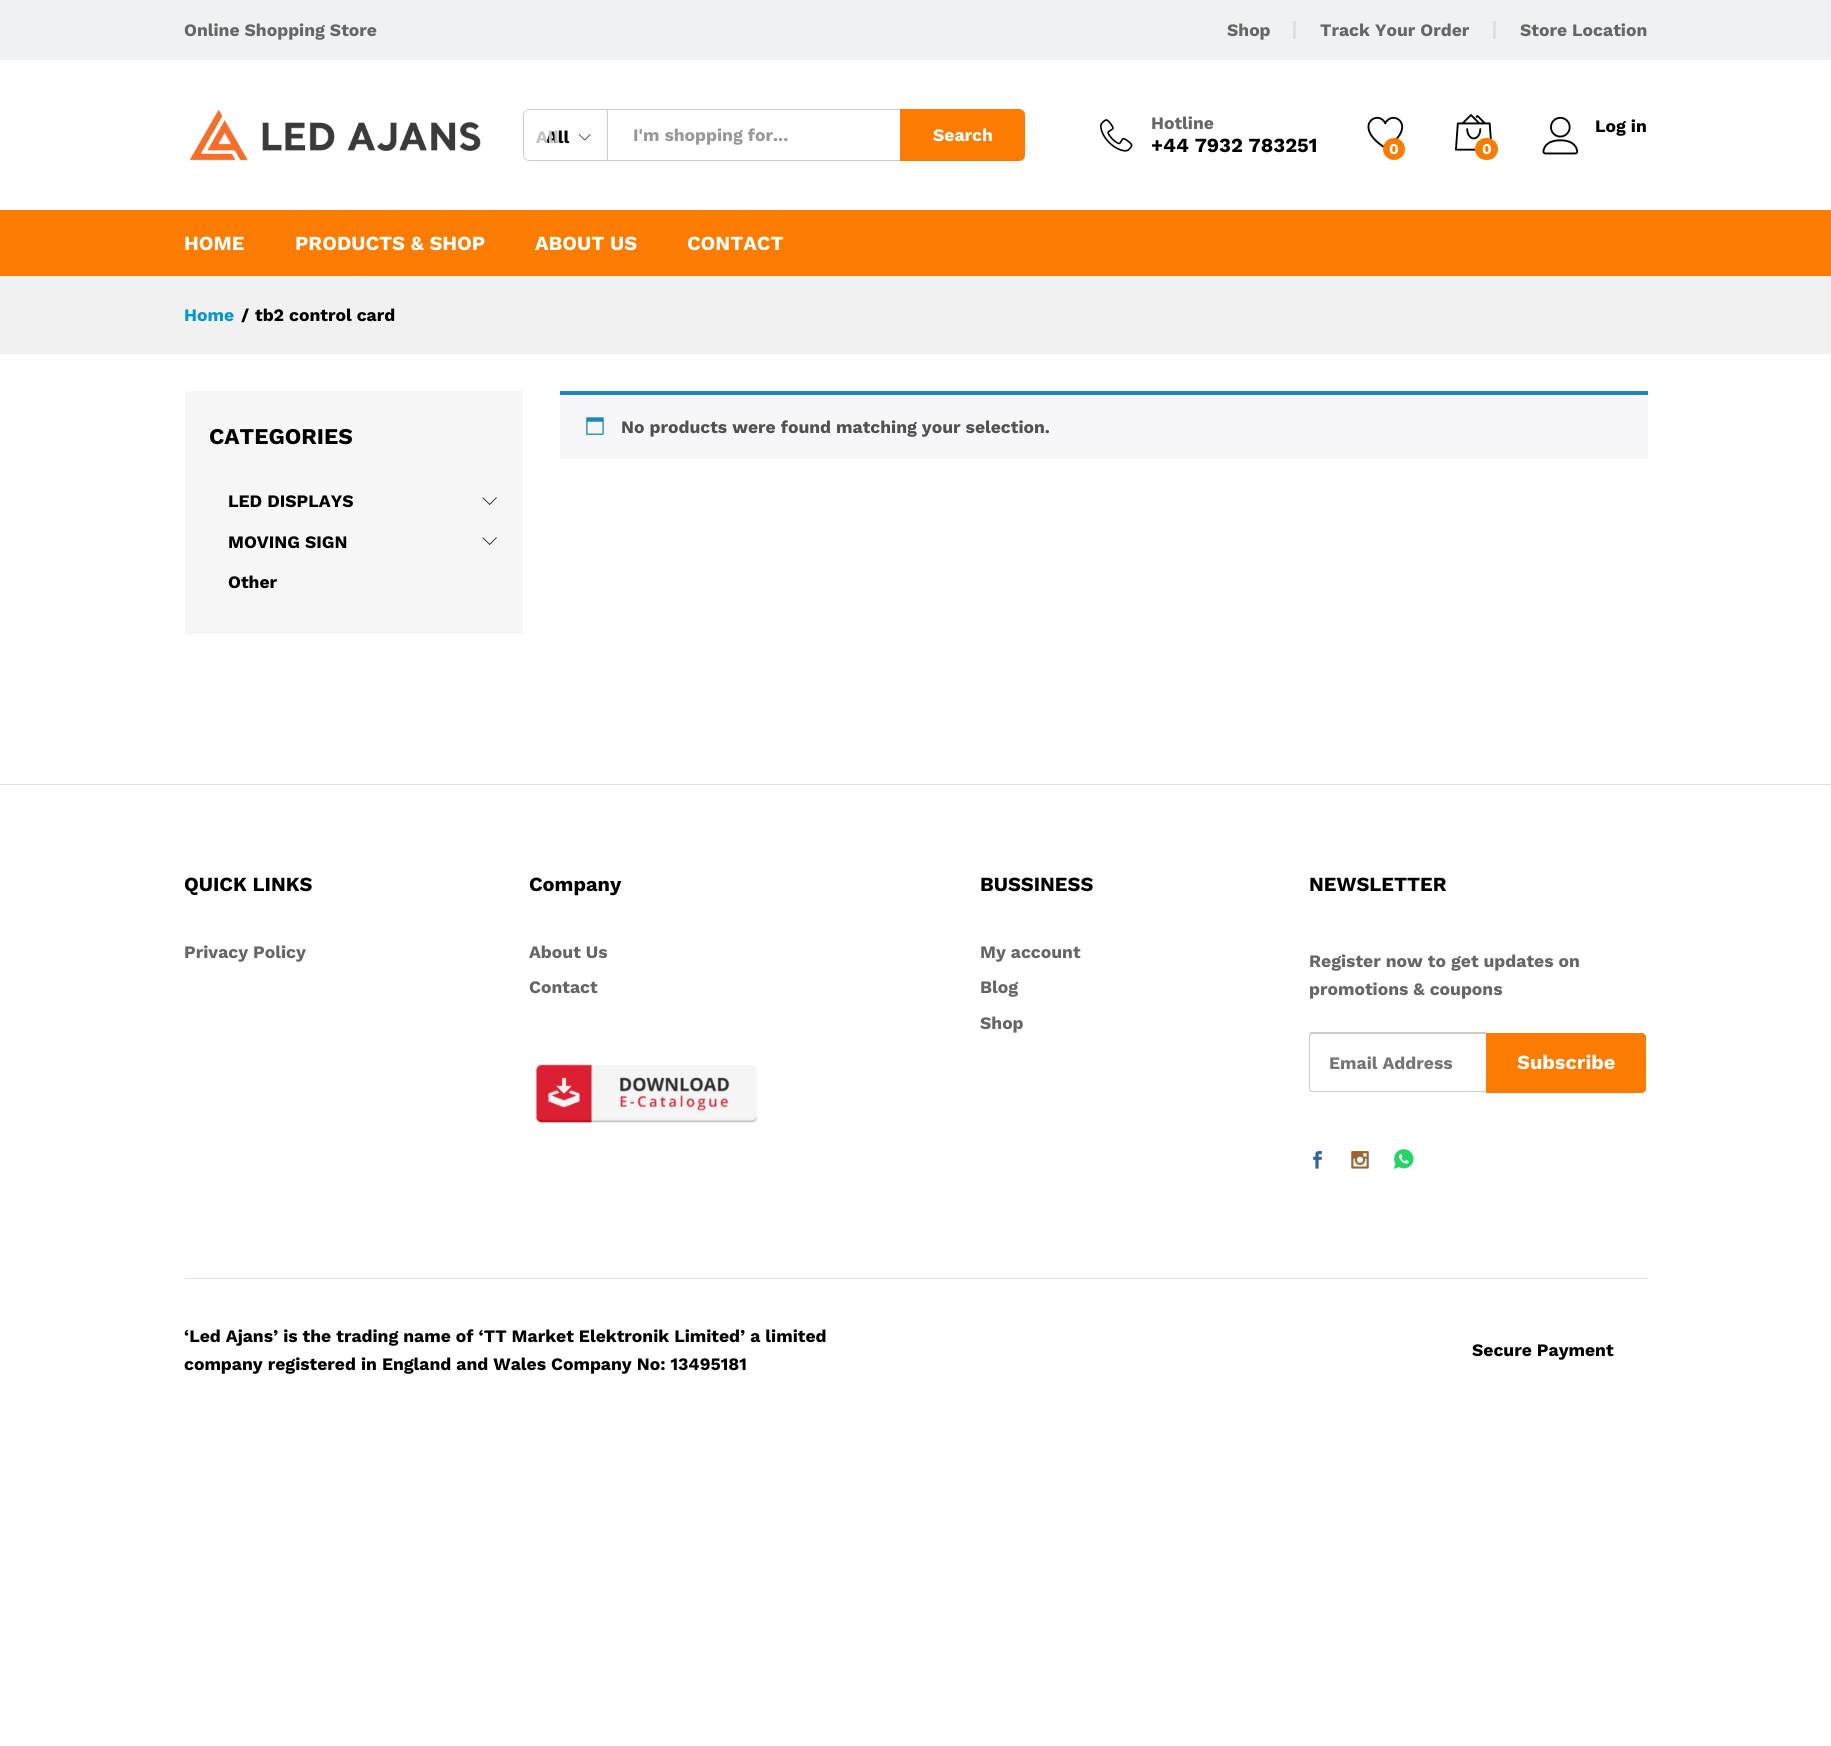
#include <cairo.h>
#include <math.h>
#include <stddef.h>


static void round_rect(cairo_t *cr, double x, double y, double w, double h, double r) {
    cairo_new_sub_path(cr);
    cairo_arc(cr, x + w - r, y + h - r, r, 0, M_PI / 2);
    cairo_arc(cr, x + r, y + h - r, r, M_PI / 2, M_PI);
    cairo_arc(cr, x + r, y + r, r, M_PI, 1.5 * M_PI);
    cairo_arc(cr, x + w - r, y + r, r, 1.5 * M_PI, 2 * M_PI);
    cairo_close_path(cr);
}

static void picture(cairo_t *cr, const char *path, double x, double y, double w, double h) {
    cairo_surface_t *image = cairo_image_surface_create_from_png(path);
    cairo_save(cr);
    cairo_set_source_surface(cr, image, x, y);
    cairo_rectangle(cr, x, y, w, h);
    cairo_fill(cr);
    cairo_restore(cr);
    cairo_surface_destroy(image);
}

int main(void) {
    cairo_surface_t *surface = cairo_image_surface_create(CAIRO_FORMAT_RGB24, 1831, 1746);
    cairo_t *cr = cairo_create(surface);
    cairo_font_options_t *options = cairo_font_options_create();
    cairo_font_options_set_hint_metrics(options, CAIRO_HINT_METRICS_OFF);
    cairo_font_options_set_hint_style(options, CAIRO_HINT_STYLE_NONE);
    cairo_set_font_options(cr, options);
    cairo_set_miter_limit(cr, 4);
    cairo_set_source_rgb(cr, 1, 1, 1);
    cairo_paint(cr);
    cairo_set_source_rgb(cr, 0.937, 0.945, 0.949);
    cairo_rectangle(cr, 0, 0, 1831, 60);
    cairo_fill(cr);
    cairo_select_font_face(cr, "Work Sans", CAIRO_FONT_SLANT_NORMAL, CAIRO_FONT_WEIGHT_BOLD);
    cairo_set_font_size(cr, 17.5);
    cairo_set_source_rgb(cr, 0.4, 0.4, 0.4);
    cairo_move_to(cr, 184, 36);
    cairo_show_text(cr, "Online Shopping Store");
    cairo_move_to(cr, 1227, 36);
    cairo_show_text(cr, "Shop");
    cairo_set_source_rgb(cr, 0.882, 0.882, 0.882);
    cairo_rectangle(cr, 1293, 21, 3, 18);
    cairo_fill(cr);
    cairo_set_source_rgb(cr, 0.4, 0.4, 0.4);
    cairo_move_to(cr, 1320, 36);
    cairo_show_text(cr, "Track Your Order");
    cairo_set_source_rgb(cr, 0.882, 0.882, 0.882);
    cairo_rectangle(cr, 1493, 21, 3, 18);
    cairo_fill(cr);
    cairo_set_source_rgb(cr, 0.4, 0.4, 0.4);
    cairo_move_to(cr, 1520, 36);
    cairo_show_text(cr, "Store Location");
    picture(cr, "img1.png", 189, 109, 292, 52);
    cairo_new_path(cr);
    cairo_move_to(cr, 529, 109.5);
    cairo_line_to(cr, 607.5, 109.5);
    cairo_line_to(cr, 607.5, 160.5);
    cairo_line_to(cr, 529, 160.5);
    cairo_curve_to(cr, 526, 160.5, 523.5, 158, 523.5, 155);
    cairo_line_to(cr, 523.5, 115);
    cairo_curve_to(cr, 523.5, 112, 526, 109.5, 529, 109.5);
    cairo_close_path(cr);
    cairo_set_source_rgb(cr, 0.8, 0.8, 0.8);
    cairo_set_line_width(cr, 1);
    cairo_stroke(cr);
    cairo_set_source_rgb(cr, 0, 0, 0);
    cairo_move_to(cr, 546, 143);
    cairo_show_text(cr, "All");
    cairo_set_source_rgb(cr, 0.761, 0.761, 0.761);
    cairo_move_to(cr, 536, 143);
    cairo_show_text(cr, "All");
    picture(cr, "img2.png", 578, 134, 13, 7);
    cairo_set_source_rgb(cr, 0.8, 0.8, 0.8);
    cairo_rectangle(cr, 608, 109, 292, 1);
    cairo_fill(cr);
    cairo_rectangle(cr, 608, 160, 292, 1);
    cairo_fill(cr);
    cairo_set_source_rgb(cr, 0.6, 0.6, 0.6);
    cairo_move_to(cr, 633, 141);
    cairo_show_text(cr, "I'm shopping for...");
    cairo_set_source_rgb(cr, 0.984, 0.486, 0);
    cairo_new_path(cr);
    cairo_move_to(cr, 900, 109);
    cairo_line_to(cr, 1019, 109);
    cairo_curve_to(cr, 1022.5, 109, 1025, 111.5, 1025, 115);
    cairo_line_to(cr, 1025, 155);
    cairo_curve_to(cr, 1025, 158.5, 1022.5, 161, 1019, 161);
    cairo_line_to(cr, 900, 161);
    cairo_close_path(cr);
    cairo_fill(cr);
    cairo_set_source_rgb(cr, 1, 1, 1);
    cairo_move_to(cr, 933, 141);
    cairo_show_text(cr, "Search");
    picture(cr, "img3.png", 1100, 119, 33, 33);
    cairo_set_source_rgb(cr, 0.4, 0.4, 0.4);
    cairo_move_to(cr, 1151, 129);
    cairo_show_text(cr, "Hotline");
    cairo_set_font_size(cr, 20);
    cairo_set_source_rgb(cr, 0, 0, 0);
    cairo_move_to(cr, 1151, 152);
    cairo_show_text(cr, "+44 7932 783251");
    picture(cr, "img4.png", 1542, 116, 37, 39);
    cairo_set_font_size(cr, 17.5);
    cairo_move_to(cr, 1595, 132);
    cairo_show_text(cr, "Log in");
    picture(cr, "img5.png", 1367, 116, 37, 32);
    cairo_set_source_rgb(cr, 0.984, 0.486, 0);
    cairo_arc(cr, 1394, 149, 11, 0, 2 * M_PI);
    cairo_fill(cr);
    cairo_set_font_size(cr, 15);
    cairo_set_source_rgb(cr, 1, 1, 1);
    cairo_move_to(cr, 1389, 154);
    cairo_show_text(cr, "0");
    picture(cr, "img6.png", 1455, 114, 37, 37);
    cairo_set_source_rgb(cr, 0.984, 0.486, 0);
    round_rect(cr, 1475, 138, 23, 22, 11);
    cairo_fill(cr);
    cairo_set_source_rgb(cr, 1, 1, 1);
    cairo_move_to(cr, 1482, 154);
    cairo_show_text(cr, "0");
    cairo_set_source_rgb(cr, 0.984, 0.486, 0);
    cairo_rectangle(cr, 0, 210, 1831, 66);
    cairo_fill(cr);
    cairo_set_font_size(cr, 20);
    cairo_set_source_rgb(cr, 1, 1, 1);
    cairo_move_to(cr, 184, 250);
    cairo_show_text(cr, "HOME");
    cairo_move_to(cr, 295, 250);
    cairo_show_text(cr, "PRODUCTS & SHOP");
    cairo_move_to(cr, 535, 250);
    cairo_show_text(cr, "ABOUT US");
    cairo_move_to(cr, 687, 250);
    cairo_show_text(cr, "CONTACT");
    cairo_set_source_rgb(cr, 0.945, 0.945, 0.945);
    cairo_rectangle(cr, 0, 276, 1831, 78);
    cairo_fill(cr);
    cairo_set_font_size(cr, 17.5);
    cairo_set_source_rgb(cr, 0, 0.6, 0.8);
    cairo_move_to(cr, 184, 321);
    cairo_show_text(cr, "Home");
    cairo_set_source_rgb(cr, 0, 0, 0);
    cairo_move_to(cr, 241, 321);
    cairo_show_text(cr, "/");
    cairo_move_to(cr, 255, 321);
    cairo_show_text(cr, "tb2 control card");
    cairo_set_source_rgb(cr, 0.961, 0.961, 0.961);
    cairo_rectangle(cr, 185, 391, 338, 243);
    cairo_fill(cr);
    cairo_set_font_size(cr, 22.5);
    cairo_set_source_rgb(cr, 0, 0, 0);
    cairo_move_to(cr, 209, 444);
    cairo_show_text(cr, "CATEGORIES");
    cairo_set_font_size(cr, 17.5);
    cairo_move_to(cr, 228, 507);
    cairo_show_text(cr, "LED DISPLAYS");
    picture(cr, "img7.png", 482, 497, 15, 8);
    cairo_move_to(cr, 228, 548);
    cairo_show_text(cr, "MOVING SIGN");
    picture(cr, "img7.png", 482, 537, 15, 8);
    cairo_move_to(cr, 228, 588);
    cairo_show_text(cr, "Other");
    cairo_set_source_rgb(cr, 0.965, 0.961, 0.973);
    cairo_rectangle(cr, 560, 395, 1088, 64);
    cairo_fill(cr);
    cairo_set_source_rgb(cr, 0.118, 0.522, 0.745);
    cairo_rectangle(cr, 560, 391, 1088, 4);
    cairo_fill(cr);
    picture(cr, "img8.png", 586, 417, 18, 18);
    cairo_set_source_rgb(cr, 0.318, 0.318, 0.318);
    cairo_move_to(cr, 621, 433);
    cairo_show_text(cr, "No products were found matching your selection.");
    cairo_set_source_rgb(cr, 0.882, 0.882, 0.882);
    cairo_rectangle(cr, 0, 784, 1831, 1);
    cairo_fill(cr);
    cairo_set_font_size(cr, 20);
    cairo_set_source_rgb(cr, 0, 0, 0);
    cairo_move_to(cr, 184, 891);
    cairo_show_text(cr, "QUICK LINKS");
    cairo_set_font_size(cr, 17.5);
    cairo_set_source_rgb(cr, 0.4, 0.4, 0.4);
    cairo_move_to(cr, 184, 958);
    cairo_show_text(cr, "Privacy Policy");
    cairo_set_font_size(cr, 20);
    cairo_set_source_rgb(cr, 0, 0, 0);
    cairo_move_to(cr, 529, 891);
    cairo_show_text(cr, "Company");
    cairo_set_font_size(cr, 17.5);
    cairo_set_source_rgb(cr, 0.4, 0.4, 0.4);
    cairo_move_to(cr, 529, 958);
    cairo_show_text(cr, "About Us");
    cairo_move_to(cr, 529, 993);
    cairo_show_text(cr, "Contact");
    picture(cr, "img9.png", 536, 1064, 222, 59);
    cairo_set_font_size(cr, 20);
    cairo_set_source_rgb(cr, 0, 0, 0);
    cairo_move_to(cr, 980, 891);
    cairo_show_text(cr, "BUSSINESS");
    cairo_set_font_size(cr, 17.5);
    cairo_set_source_rgb(cr, 0.4, 0.4, 0.4);
    cairo_move_to(cr, 980, 958);
    cairo_show_text(cr, "My account");
    cairo_move_to(cr, 980, 993);
    cairo_show_text(cr, "Blog");
    cairo_move_to(cr, 980, 1029);
    cairo_show_text(cr, "Shop");
    cairo_set_font_size(cr, 20);
    cairo_set_source_rgb(cr, 0, 0, 0);
    cairo_move_to(cr, 1309, 891);
    cairo_show_text(cr, "NEWSLETTER");
    cairo_set_font_size(cr, 17.5);
    cairo_set_source_rgb(cr, 0.4, 0.4, 0.4);
    cairo_move_to(cr, 1309, 967);
    cairo_show_text(cr, "Register now to get updates on");
    cairo_move_to(cr, 1309, 995);
    cairo_show_text(cr, "promotions & coupons");
    cairo_set_source_rgb(cr, 0.8, 0.8, 0.8);
    cairo_set_fill_rule(cr, CAIRO_FILL_RULE_EVEN_ODD);
    cairo_new_path(cr);
    cairo_move_to(cr, 1312, 1032);
    cairo_line_to(cr, 1486, 1032);
    cairo_line_to(cr, 1486, 1092);
    cairo_line_to(cr, 1312, 1092);
    cairo_curve_to(cr, 1310, 1092, 1309, 1091, 1309, 1089);
    cairo_line_to(cr, 1309, 1036);
    cairo_curve_to(cr, 1309, 1034, 1310, 1032, 1312, 1032);
    cairo_close_path(cr);
    cairo_move_to(cr, 1312, 1034);
    cairo_line_to(cr, 1486, 1034);
    cairo_line_to(cr, 1486, 1091);
    cairo_line_to(cr, 1312, 1091);
    cairo_curve_to(cr, 1311, 1091, 1310, 1090, 1310, 1089);
    cairo_line_to(cr, 1310, 1036);
    cairo_curve_to(cr, 1310, 1035, 1311, 1034, 1312, 1034);
    cairo_close_path(cr);
    cairo_fill(cr);
    cairo_set_source_rgb(cr, 0.459, 0.459, 0.459);
    cairo_move_to(cr, 1329, 1069);
    cairo_show_text(cr, "Email Address");
    cairo_set_source_rgb(cr, 0.984, 0.486, 0);
    cairo_new_path(cr);
    cairo_move_to(cr, 1486, 1033);
    cairo_line_to(cr, 1642, 1033);
    cairo_curve_to(cr, 1644, 1033, 1646, 1035, 1646, 1037);
    cairo_line_to(cr, 1646, 1089);
    cairo_curve_to(cr, 1646, 1091, 1644, 1093, 1642, 1093);
    cairo_line_to(cr, 1486, 1093);
    cairo_close_path(cr);
    cairo_fill(cr);
    cairo_set_font_size(cr, 20);
    cairo_set_source_rgb(cr, 1, 1, 1);
    cairo_move_to(cr, 1517, 1069);
    cairo_show_text(cr, "Subscribe");
    picture(cr, "img10.png", 1313, 1151, 9, 18);
    picture(cr, "img11.png", 1351, 1151, 18, 18);
    picture(cr, "img12.png", 1393, 1149, 21, 20);
    cairo_set_source_rgb(cr, 0.882, 0.882, 0.882);
    cairo_rectangle(cr, 185, 1278, 1463, 1);
    cairo_fill(cr);
    cairo_set_font_size(cr, 17.5);
    cairo_set_source_rgb(cr, 0, 0, 0);
    cairo_move_to(cr, 184, 1342);
    cairo_show_text(cr, "‘Led Ajans’ is the trading name of ‘TT Market Elektronik Limited’ a limited");
    cairo_move_to(cr, 184, 1370);
    cairo_show_text(cr, "company registered in England and Wales Company No: 13495181");
    cairo_move_to(cr, 1472, 1356);
    cairo_show_text(cr, "Secure Payment");
    cairo_surface_write_to_png(surface, "page.png");
    cairo_font_options_destroy(options);
    cairo_destroy(cr);
    cairo_surface_destroy(surface);
    return 0;
}
